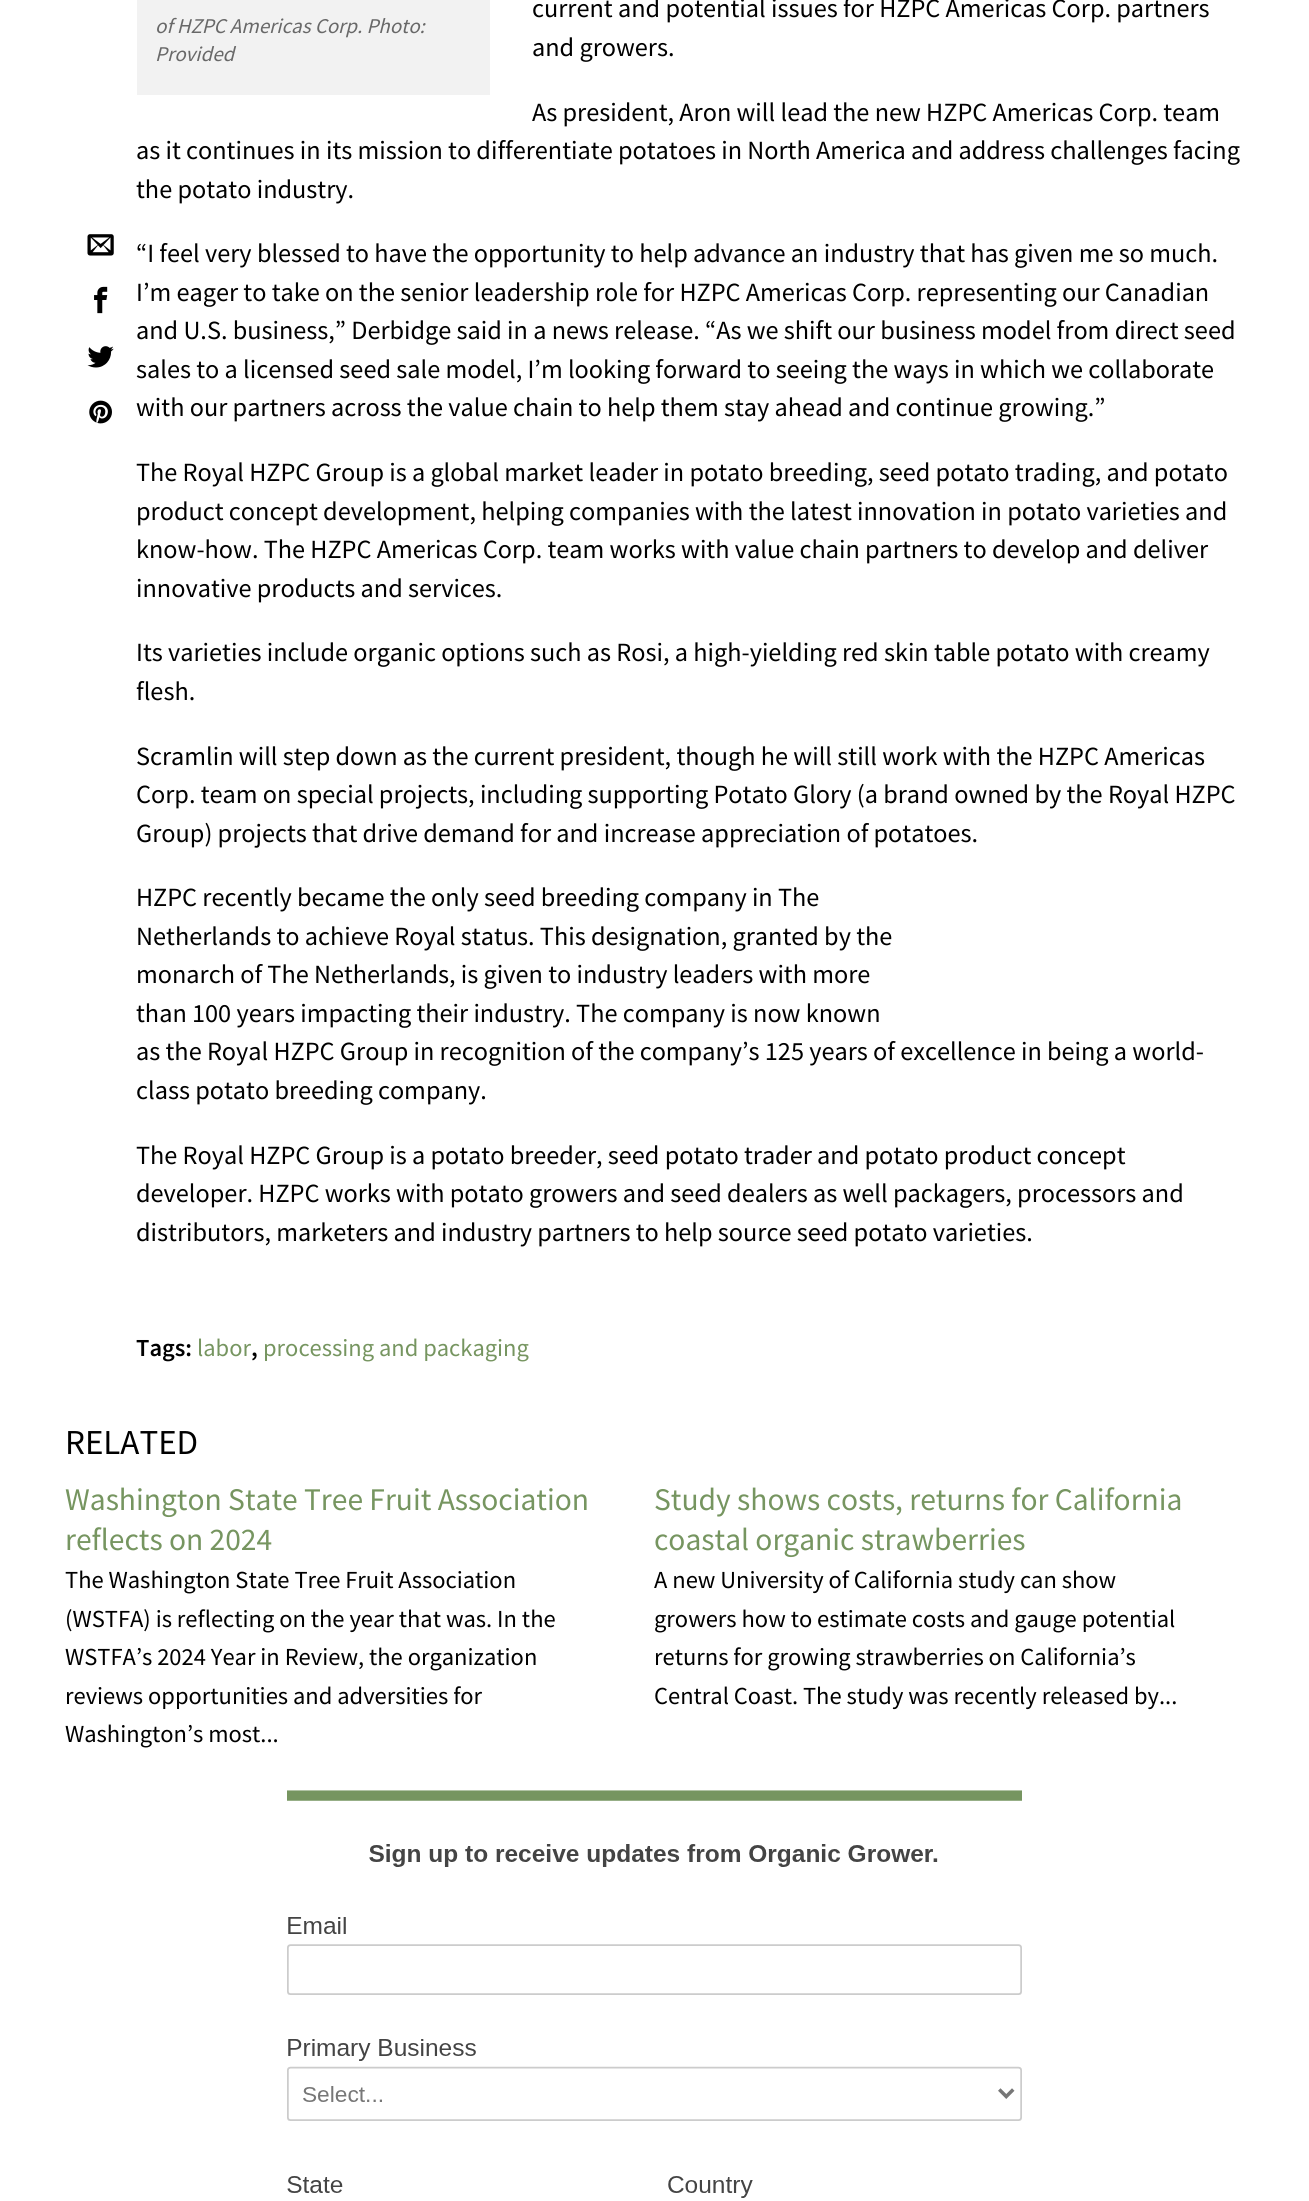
#include <cairo.h>
#include <math.h>
#include <stddef.h>


static void picture(cairo_t *cr, const char *path, double x, double y, double w, double h) {
    cairo_surface_t *image = cairo_image_surface_create_from_png(path);
    cairo_save(cr);
    cairo_set_source_surface(cr, image, x, y);
    cairo_rectangle(cr, x, y, w, h);
    cairo_fill(cr);
    cairo_restore(cr);
    cairo_surface_destroy(image);
}

int main(void) {
    cairo_surface_t *surface = cairo_image_surface_create(CAIRO_FORMAT_RGB24, 1309, 2201);
    cairo_t *cr = cairo_create(surface);
    cairo_font_options_t *options = cairo_font_options_create();
    cairo_font_options_set_hint_metrics(options, CAIRO_HINT_METRICS_OFF);
    cairo_font_options_set_hint_style(options, CAIRO_HINT_STYLE_NONE);
    cairo_set_font_options(cr, options);
    cairo_set_miter_limit(cr, 4);
    cairo_set_source_rgb(cr, 1, 1, 1);
    cairo_paint(cr);
    picture(cr, "img1.png", 87, 234, 27, 22);
    picture(cr, "img2.png", 94, 286, 14, 28);
    picture(cr, "img3.png", 87, 346, 27, 22);
    picture(cr, "img4.png", 89, 400, 23, 24);
    cairo_set_source_rgb(cr, 0.949, 0.949, 0.949);
    cairo_rectangle(cr, 137, 0, 353, 95);
    cairo_fill(cr);
    cairo_select_font_face(cr, "Source Sans Pro", CAIRO_FONT_SLANT_ITALIC, CAIRO_FONT_WEIGHT_NORMAL);
    cairo_set_font_size(cr, 21);
    cairo_set_source_rgb(cr, 0.408, 0.408, 0.408);
    cairo_move_to(cr, 155, 33);
    cairo_show_text(cr, "of HZPC Americas Corp. Photo:");
    cairo_move_to(cr, 155, 61);
    cairo_show_text(cr, "Provided");
    cairo_select_font_face(cr, "Source Sans Pro", CAIRO_FONT_SLANT_NORMAL, CAIRO_FONT_WEIGHT_NORMAL);
    cairo_set_font_size(cr, 26.25);
    cairo_set_source_rgb(cr, 0, 0, 0);
    cairo_move_to(cr, 532, 17);
    cairo_show_text(cr, "current and potential issues for HZPC Americas Corp. partners");
    cairo_move_to(cr, 532, 56);
    cairo_show_text(cr, "and growers.");
    cairo_move_to(cr, 532, 121);
    cairo_show_text(cr, "As president, Aron will lead the new HZPC Americas Corp. team");
    cairo_move_to(cr, 136, 159);
    cairo_show_text(cr, "as it continues in its mission to differentiate potatoes in North America and address challenges facing");
    cairo_move_to(cr, 136, 198);
    cairo_show_text(cr, "the potato industry.");
    cairo_move_to(cr, 136, 262);
    cairo_show_text(cr, "“I feel very blessed to have the opportunity to help advance an industry that has given me so much.");
    cairo_move_to(cr, 136, 301);
    cairo_show_text(cr, "I’m eager to take on the senior leadership role for HZPC Americas Corp. representing our Canadian");
    cairo_move_to(cr, 136, 339);
    cairo_show_text(cr, "and U.S. business,” Derbidge said in a news release. “As we shift our business model from direct seed");
    cairo_move_to(cr, 136, 378);
    cairo_show_text(cr, "sales to a licensed seed sale model, I’m looking forward to seeing the ways in which we collaborate");
    cairo_move_to(cr, 136, 416);
    cairo_show_text(cr, "with our partners across the value chain to help them stay ahead and continue growing.”");
    cairo_move_to(cr, 136, 481);
    cairo_show_text(cr, "The Royal HZPC Group is a global market leader in potato breeding, seed potato trading, and potato");
    cairo_move_to(cr, 136, 520);
    cairo_show_text(cr, "product concept development, helping companies with the latest innovation in potato varieties and");
    cairo_move_to(cr, 136, 558);
    cairo_show_text(cr, "know-how. The HZPC Americas Corp. team works with value chain partners to develop and deliver");
    cairo_move_to(cr, 136, 597);
    cairo_show_text(cr, "innovative products and services.");
    cairo_move_to(cr, 136, 661);
    cairo_show_text(cr, "Its varieties include organic options such as Rosi, a high-yielding red skin table potato with creamy");
    cairo_move_to(cr, 136, 700);
    cairo_show_text(cr, "flesh.");
    cairo_move_to(cr, 136, 765);
    cairo_show_text(cr, "Scramlin will step down as the current president, though he will still work with the HZPC Americas");
    cairo_move_to(cr, 136, 803);
    cairo_show_text(cr, "Corp. team on special projects, including supporting Potato Glory (a brand owned by the Royal HZPC");
    cairo_move_to(cr, 136, 842);
    cairo_show_text(cr, "Group) projects that drive demand for and increase appreciation of potatoes.");
    cairo_move_to(cr, 136, 906);
    cairo_show_text(cr, "HZPC recently became the only seed breeding company in The");
    cairo_move_to(cr, 136, 945);
    cairo_show_text(cr, "Netherlands to achieve Royal status. This designation, granted by the");
    cairo_move_to(cr, 136, 983);
    cairo_show_text(cr, "monarch of The Netherlands, is given to industry leaders with more");
    cairo_move_to(cr, 136, 1022);
    cairo_show_text(cr, "than 100 years impacting their industry. The company is now known");
    cairo_move_to(cr, 136, 1060);
    cairo_show_text(cr, "as the Royal HZPC Group in recognition of the company’s 125 years of excellence in being a world-");
    cairo_move_to(cr, 136, 1099);
    cairo_show_text(cr, "class potato breeding company.");
    cairo_move_to(cr, 136, 1164);
    cairo_show_text(cr, "The Royal HZPC Group is a potato breeder, seed potato trader and potato product concept");
    cairo_move_to(cr, 136, 1202);
    cairo_show_text(cr, "developer. HZPC works with potato growers and seed dealers as well packagers, processors and");
    cairo_move_to(cr, 136, 1241);
    cairo_show_text(cr, "distributors, marketers and industry partners to help source seed potato varieties.");
    cairo_select_font_face(cr, "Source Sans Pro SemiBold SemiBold", CAIRO_FONT_SLANT_NORMAL, CAIRO_FONT_WEIGHT_NORMAL);
    cairo_set_font_size(cr, 24.5);
    cairo_move_to(cr, 136, 1356);
    cairo_show_text(cr, "Tags:");
    cairo_select_font_face(cr, "Source Sans Pro", CAIRO_FONT_SLANT_NORMAL, CAIRO_FONT_WEIGHT_NORMAL);
    cairo_set_source_rgb(cr, 0.463, 0.584, 0.376);
    cairo_move_to(cr, 197, 1356);
    cairo_show_text(cr, "labor");
    cairo_select_font_face(cr, "Source Sans Pro SemiBold SemiBold", CAIRO_FONT_SLANT_NORMAL, CAIRO_FONT_WEIGHT_NORMAL);
    cairo_set_source_rgb(cr, 0, 0, 0);
    cairo_move_to(cr, 251, 1356);
    cairo_show_text(cr, ",");
    cairo_select_font_face(cr, "Source Sans Pro", CAIRO_FONT_SLANT_NORMAL, CAIRO_FONT_WEIGHT_NORMAL);
    cairo_set_source_rgb(cr, 0.463, 0.584, 0.376);
    cairo_move_to(cr, 263, 1356);
    cairo_show_text(cr, "processing and packaging");
    cairo_set_font_size(cr, 35);
    cairo_set_source_rgb(cr, 0, 0, 0);
    cairo_move_to(cr, 65, 1454);
    cairo_show_text(cr, "RELATED");
    cairo_set_font_size(cr, 31.5);
    cairo_set_source_rgb(cr, 0.463, 0.584, 0.376);
    cairo_move_to(cr, 65, 1510);
    cairo_show_text(cr, "Washington State Tree Fruit Association");
    cairo_move_to(cr, 65, 1550);
    cairo_show_text(cr, "reflects on 2024");
    cairo_set_font_size(cr, 24.5);
    cairo_set_source_rgb(cr, 0, 0, 0);
    cairo_move_to(cr, 65, 1588);
    cairo_show_text(cr, "The Washington State Tree Fruit Association");
    cairo_move_to(cr, 65, 1627);
    cairo_show_text(cr, "(WSTFA) is reflecting on the year that was. In the");
    cairo_move_to(cr, 65, 1665);
    cairo_show_text(cr, "WSTFA’s 2024 Year in Review, the organization");
    cairo_move_to(cr, 65, 1704);
    cairo_show_text(cr, "reviews opportunities and adversities for");
    cairo_move_to(cr, 65, 1742);
    cairo_show_text(cr, "Washington’s most...");
    cairo_set_font_size(cr, 31.5);
    cairo_set_source_rgb(cr, 0.463, 0.584, 0.376);
    cairo_move_to(cr, 654, 1510);
    cairo_show_text(cr, "Study shows costs, returns for California");
    cairo_move_to(cr, 654, 1550);
    cairo_show_text(cr, "coastal organic strawberries");
    cairo_set_font_size(cr, 24.5);
    cairo_set_source_rgb(cr, 0, 0, 0);
    cairo_move_to(cr, 654, 1588);
    cairo_show_text(cr, "A new University of California study can show");
    cairo_move_to(cr, 654, 1627);
    cairo_show_text(cr, "growers how to estimate costs and gauge potential");
    cairo_move_to(cr, 654, 1665);
    cairo_show_text(cr, "returns for growing strawberries on California’s");
    cairo_move_to(cr, 654, 1704);
    cairo_show_text(cr, "Central Coast. The study was recently released by...");
    picture(cr, "img5.png", 287, 1790, 735, 408);
    cairo_surface_write_to_png(surface, "page.png");
    cairo_font_options_destroy(options);
    cairo_destroy(cr);
    cairo_surface_destroy(surface);
    return 0;
}
